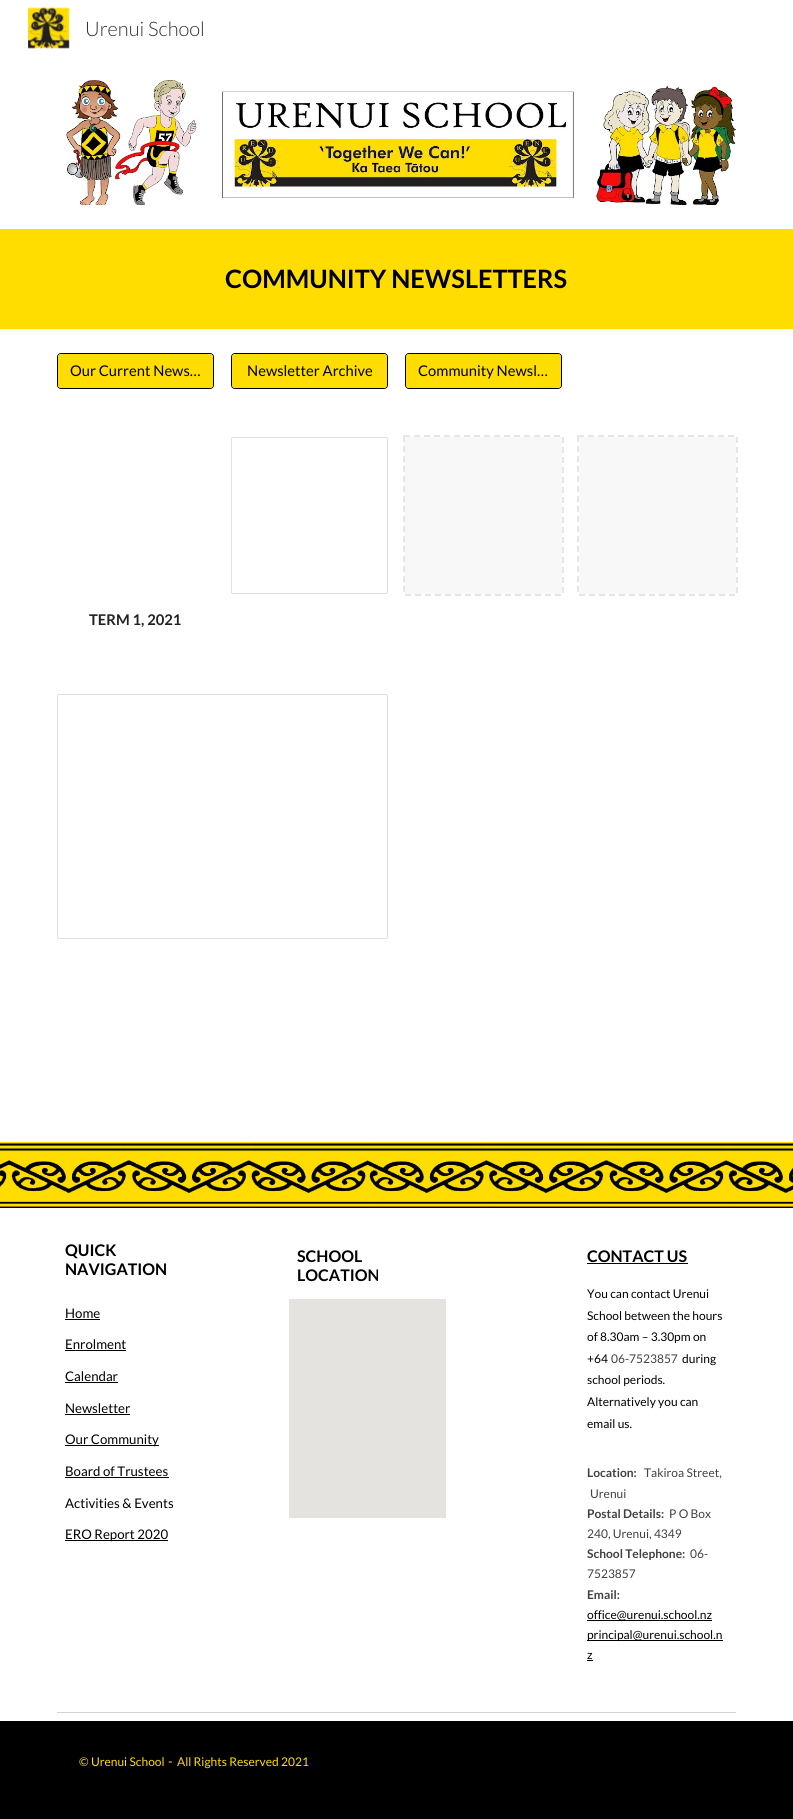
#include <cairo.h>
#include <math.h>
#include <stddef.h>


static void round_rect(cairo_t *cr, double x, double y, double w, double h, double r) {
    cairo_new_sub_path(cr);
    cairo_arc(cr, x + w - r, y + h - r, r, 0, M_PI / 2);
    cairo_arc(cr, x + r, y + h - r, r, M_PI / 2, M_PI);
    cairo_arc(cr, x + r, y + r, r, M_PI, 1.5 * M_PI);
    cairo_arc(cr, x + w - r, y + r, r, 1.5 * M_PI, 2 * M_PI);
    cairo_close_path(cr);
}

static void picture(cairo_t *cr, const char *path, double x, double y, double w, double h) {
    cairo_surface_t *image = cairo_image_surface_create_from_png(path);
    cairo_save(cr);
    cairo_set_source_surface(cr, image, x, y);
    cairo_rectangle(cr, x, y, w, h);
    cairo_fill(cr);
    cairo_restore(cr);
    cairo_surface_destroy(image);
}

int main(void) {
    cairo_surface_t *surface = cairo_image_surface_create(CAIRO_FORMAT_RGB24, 793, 1819);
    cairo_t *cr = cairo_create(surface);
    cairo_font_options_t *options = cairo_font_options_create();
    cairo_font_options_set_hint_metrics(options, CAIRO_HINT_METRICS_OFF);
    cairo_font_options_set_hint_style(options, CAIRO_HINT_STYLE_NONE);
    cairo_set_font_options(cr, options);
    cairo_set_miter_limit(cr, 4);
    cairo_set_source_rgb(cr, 1, 1, 1);
    cairo_paint(cr);
    picture(cr, "img1.png", 28, 7, 42, 42);
    cairo_select_font_face(cr, "Lato Light", CAIRO_FONT_SLANT_NORMAL, CAIRO_FONT_WEIGHT_NORMAL);
    cairo_set_font_size(cr, 20);
    cairo_set_source_rgb(cr, 0.2, 0.2, 0.2);
    cairo_move_to(cr, 85, 36);
    cairo_show_text(cr, "Urenui School");
    picture(cr, "img2.png", 65, 80, 671, 125);
    cairo_set_source_rgb(cr, 1, 0.867, 0);
    cairo_rectangle(cr, 0, 229, 793, 100);
    cairo_fill(cr);
    cairo_select_font_face(cr, "Lato", CAIRO_FONT_SLANT_NORMAL, CAIRO_FONT_WEIGHT_BOLD);
    cairo_set_font_size(cr, 25.3);
    cairo_set_source_rgb(cr, 0, 0, 0);
    cairo_move_to(cr, 225, 288);
    cairo_show_text(cr, "COMMUNITY NEWSLETTERS");
    round_rect(cr, 57.5, 353.5, 156, 35, 3.5);
    cairo_set_line_width(cr, 1);
    cairo_stroke(cr);
    cairo_set_source_rgb(cr, 1, 0.867, 0);
    round_rect(cr, 58, 354, 155, 34, 3);
    cairo_fill(cr);
    cairo_select_font_face(cr, "Lato", CAIRO_FONT_SLANT_NORMAL, CAIRO_FONT_WEIGHT_NORMAL);
    cairo_set_font_size(cr, 14.75);
    cairo_set_source_rgb(cr, 0, 0, 0);
    cairo_move_to(cr, 70, 376);
    cairo_show_text(cr, "Our Current News…");
    round_rect(cr, 231.5, 353.5, 156, 35, 3.5);
    cairo_stroke(cr);
    cairo_set_source_rgb(cr, 1, 0.867, 0);
    round_rect(cr, 232, 354, 155, 34, 3);
    cairo_fill(cr);
    cairo_set_source_rgb(cr, 0, 0, 0);
    cairo_move_to(cr, 247, 376);
    cairo_show_text(cr, "Newsletter Archive");
    round_rect(cr, 405.5, 353.5, 156, 35, 3.5);
    cairo_stroke(cr);
    cairo_set_source_rgb(cr, 1, 0.867, 0);
    round_rect(cr, 406, 354, 155, 34, 3);
    cairo_fill(cr);
    cairo_set_source_rgb(cr, 0, 0, 0);
    cairo_move_to(cr, 418, 376);
    cairo_show_text(cr, "Community Newsl…");
    round_rect(cr, 231.5, 437.5, 156, 156, 1.5);
    cairo_set_source_rgb(cr, 0.878, 0.878, 0.878);
    cairo_stroke(cr);
    cairo_set_source_rgb(cr, 0.969, 0.969, 0.969);
    cairo_rectangle(cr, 405, 437, 157, 157);
    cairo_fill(cr);
    cairo_new_path(cr);
    cairo_move_to(cr, 404, 436);
    cairo_line_to(cr, 563, 436);
    cairo_line_to(cr, 563, 595);
    cairo_line_to(cr, 404, 595);
    cairo_close_path(cr);
    cairo_set_source_rgb(cr, 0.902, 0.902, 0.902);
    cairo_set_line_width(cr, 2);
    cairo_set_dash(cr, (double[]){6, 4}, 2, 0);
    cairo_stroke(cr);
    cairo_set_source_rgb(cr, 0.969, 0.969, 0.969);
    cairo_rectangle(cr, 579, 437, 157, 157);
    cairo_fill(cr);
    cairo_new_path(cr);
    cairo_move_to(cr, 578, 436);
    cairo_line_to(cr, 737, 436);
    cairo_line_to(cr, 737, 595);
    cairo_line_to(cr, 578, 595);
    cairo_close_path(cr);
    cairo_set_source_rgb(cr, 0.902, 0.902, 0.902);
    cairo_stroke(cr);
    cairo_select_font_face(cr, "Lato", CAIRO_FONT_SLANT_NORMAL, CAIRO_FONT_WEIGHT_BOLD);
    cairo_set_source_rgb(cr, 0.129, 0.129, 0.129);
    cairo_move_to(cr, 89, 625);
    cairo_show_text(cr, "TERM 1, 2021");
    round_rect(cr, 57.5, 694.5, 330, 244, 1.5);
    cairo_set_source_rgb(cr, 0.878, 0.878, 0.878);
    cairo_set_line_width(cr, 1);
    cairo_set_dash(cr, NULL, 0, 0);
    cairo_stroke(cr);
    picture(cr, "img3.png", 0, 1142, 793, 66);
    cairo_set_font_size(cr, 16);
    cairo_set_source_rgb(cr, 0, 0, 0);
    cairo_move_to(cr, 65, 1256);
    cairo_show_text(cr, "QUICK");
    cairo_move_to(cr, 65, 1275);
    cairo_show_text(cr, "NAVIGATION");
    cairo_select_font_face(cr, "Lato", CAIRO_FONT_SLANT_NORMAL, CAIRO_FONT_WEIGHT_NORMAL);
    cairo_set_font_size(cr, 13.25);
    cairo_move_to(cr, 65, 1318);
    cairo_show_text(cr, "Home");
    cairo_rectangle(cr, 65, 1319, 35, 1);
    cairo_fill(cr);
    cairo_move_to(cr, 65, 1349);
    cairo_show_text(cr, "Enrolment");
    cairo_rectangle(cr, 65, 1350, 61, 1);
    cairo_fill(cr);
    cairo_move_to(cr, 65, 1381);
    cairo_show_text(cr, "Calendar");
    cairo_rectangle(cr, 65, 1382, 53, 1);
    cairo_fill(cr);
    cairo_move_to(cr, 65, 1413);
    cairo_show_text(cr, "Newsletter");
    cairo_rectangle(cr, 65, 1414, 65, 1);
    cairo_fill(cr);
    cairo_rectangle(cr, 65, 1445, 94, 1);
    cairo_fill(cr);
    cairo_move_to(cr, 65, 1444);
    cairo_show_text(cr, "Our Community");
    cairo_move_to(cr, 65, 1476);
    cairo_show_text(cr, "Board of Trustees");
    cairo_rectangle(cr, 65, 1477, 104, 1);
    cairo_fill(cr);
    cairo_move_to(cr, 65, 1508);
    cairo_show_text(cr, "Activities & Events");
    cairo_rectangle(cr, 65, 1540, 103, 1);
    cairo_fill(cr);
    cairo_move_to(cr, 65, 1539);
    cairo_show_text(cr, "ERO Report 2020");
    cairo_select_font_face(cr, "Lato", CAIRO_FONT_SLANT_NORMAL, CAIRO_FONT_WEIGHT_BOLD);
    cairo_set_font_size(cr, 16);
    cairo_move_to(cr, 297, 1262);
    cairo_show_text(cr, "SCHOOL");
    cairo_move_to(cr, 297, 1281);
    cairo_show_text(cr, "LOCATION");
    cairo_set_source_rgb(cr, 0.898, 0.89, 0.875);
    cairo_rectangle(cr, 289, 1299, 157, 219);
    cairo_fill(cr);
    cairo_set_source_rgb(cr, 0, 0, 0);
    cairo_move_to(cr, 587, 1262);
    cairo_show_text(cr, "CONTACT US");
    cairo_rectangle(cr, 587, 1263, 101, 1);
    cairo_fill(cr);
    cairo_select_font_face(cr, "Lato", CAIRO_FONT_SLANT_NORMAL, CAIRO_FONT_WEIGHT_NORMAL);
    cairo_set_font_size(cr, 12);
    cairo_move_to(cr, 587, 1298);
    cairo_show_text(cr, "You can contact Urenui");
    cairo_move_to(cr, 587, 1320);
    cairo_show_text(cr, "School between the hours");
    cairo_move_to(cr, 587, 1341);
    cairo_show_text(cr, "of 8.30am – 3.30pm on");
    cairo_move_to(cr, 587, 1363);
    cairo_show_text(cr, "+64");
    cairo_set_source_rgb(cr, 0.255, 0.251, 0.259);
    cairo_move_to(cr, 611, 1363);
    cairo_show_text(cr, "06-7523857");
    cairo_set_source_rgb(cr, 0, 0, 0);
    cairo_move_to(cr, 682, 1363);
    cairo_show_text(cr, "during");
    cairo_move_to(cr, 587, 1384);
    cairo_show_text(cr, "school periods.");
    cairo_move_to(cr, 587, 1406);
    cairo_show_text(cr, "Alternatively you can");
    cairo_move_to(cr, 587, 1428);
    cairo_show_text(cr, "email us.");
    cairo_select_font_face(cr, "Lato", CAIRO_FONT_SLANT_NORMAL, CAIRO_FONT_WEIGHT_BOLD);
    cairo_set_source_rgb(cr, 0.255, 0.251, 0.259);
    cairo_move_to(cr, 587, 1477);
    cairo_show_text(cr, "Location:");
    cairo_select_font_face(cr, "Lato", CAIRO_FONT_SLANT_NORMAL, CAIRO_FONT_WEIGHT_NORMAL);
    cairo_move_to(cr, 644, 1477);
    cairo_show_text(cr, "Takiroa Street,");
    cairo_move_to(cr, 590, 1498);
    cairo_show_text(cr, "Urenui");
    cairo_select_font_face(cr, "Lato", CAIRO_FONT_SLANT_NORMAL, CAIRO_FONT_WEIGHT_BOLD);
    cairo_move_to(cr, 587, 1518);
    cairo_show_text(cr, "Postal Details:");
    cairo_select_font_face(cr, "Lato", CAIRO_FONT_SLANT_NORMAL, CAIRO_FONT_WEIGHT_NORMAL);
    cairo_move_to(cr, 669, 1518);
    cairo_show_text(cr, "P O Box");
    cairo_move_to(cr, 587, 1538);
    cairo_show_text(cr, "240, Urenui, 4349");
    cairo_select_font_face(cr, "Lato", CAIRO_FONT_SLANT_NORMAL, CAIRO_FONT_WEIGHT_BOLD);
    cairo_move_to(cr, 587, 1558);
    cairo_show_text(cr, "School Telephone:");
    cairo_select_font_face(cr, "Lato", CAIRO_FONT_SLANT_NORMAL, CAIRO_FONT_WEIGHT_NORMAL);
    cairo_move_to(cr, 690, 1558);
    cairo_show_text(cr, "06-");
    cairo_move_to(cr, 587, 1578);
    cairo_show_text(cr, "7523857");
    cairo_select_font_face(cr, "Lato", CAIRO_FONT_SLANT_NORMAL, CAIRO_FONT_WEIGHT_BOLD);
    cairo_move_to(cr, 587, 1599);
    cairo_show_text(cr, "Email:");
    cairo_set_source_rgb(cr, 0, 0, 0);
    cairo_rectangle(cr, 587, 1620, 125, 1);
    cairo_fill(cr);
    cairo_select_font_face(cr, "Lato", CAIRO_FONT_SLANT_NORMAL, CAIRO_FONT_WEIGHT_NORMAL);
    cairo_move_to(cr, 587, 1619);
    cairo_show_text(cr, "office@urenui.school.nz");
    cairo_rectangle(cr, 587, 1640, 136, 1);
    cairo_fill(cr);
    cairo_move_to(cr, 587, 1639);
    cairo_show_text(cr, "principal@urenui.school.n");
    cairo_move_to(cr, 587, 1659);
    cairo_show_text(cr, "z");
    cairo_rectangle(cr, 587, 1660, 6, 1);
    cairo_fill(cr);
    cairo_set_source_rgb(cr, 0.827, 0.827, 0.827);
    cairo_rectangle(cr, 57, 1712, 679, 1);
    cairo_fill(cr);
    cairo_set_source_rgb(cr, 0, 0, 0);
    cairo_rectangle(cr, 0, 1721, 793, 98);
    cairo_fill(cr);
    cairo_set_source_rgb(cr, 1, 0.867, 0);
    cairo_move_to(cr, 79, 1766);
    cairo_show_text(cr, "© Urenui School");
    cairo_set_font_size(cr, 13.25);
    cairo_move_to(cr, 168, 1766);
    cairo_show_text(cr, "-");
    cairo_set_font_size(cr, 12);
    cairo_move_to(cr, 177, 1766);
    cairo_show_text(cr, "All Rights Reserved 2021");
    cairo_surface_write_to_png(surface, "page.png");
    cairo_font_options_destroy(options);
    cairo_destroy(cr);
    cairo_surface_destroy(surface);
    return 0;
}
